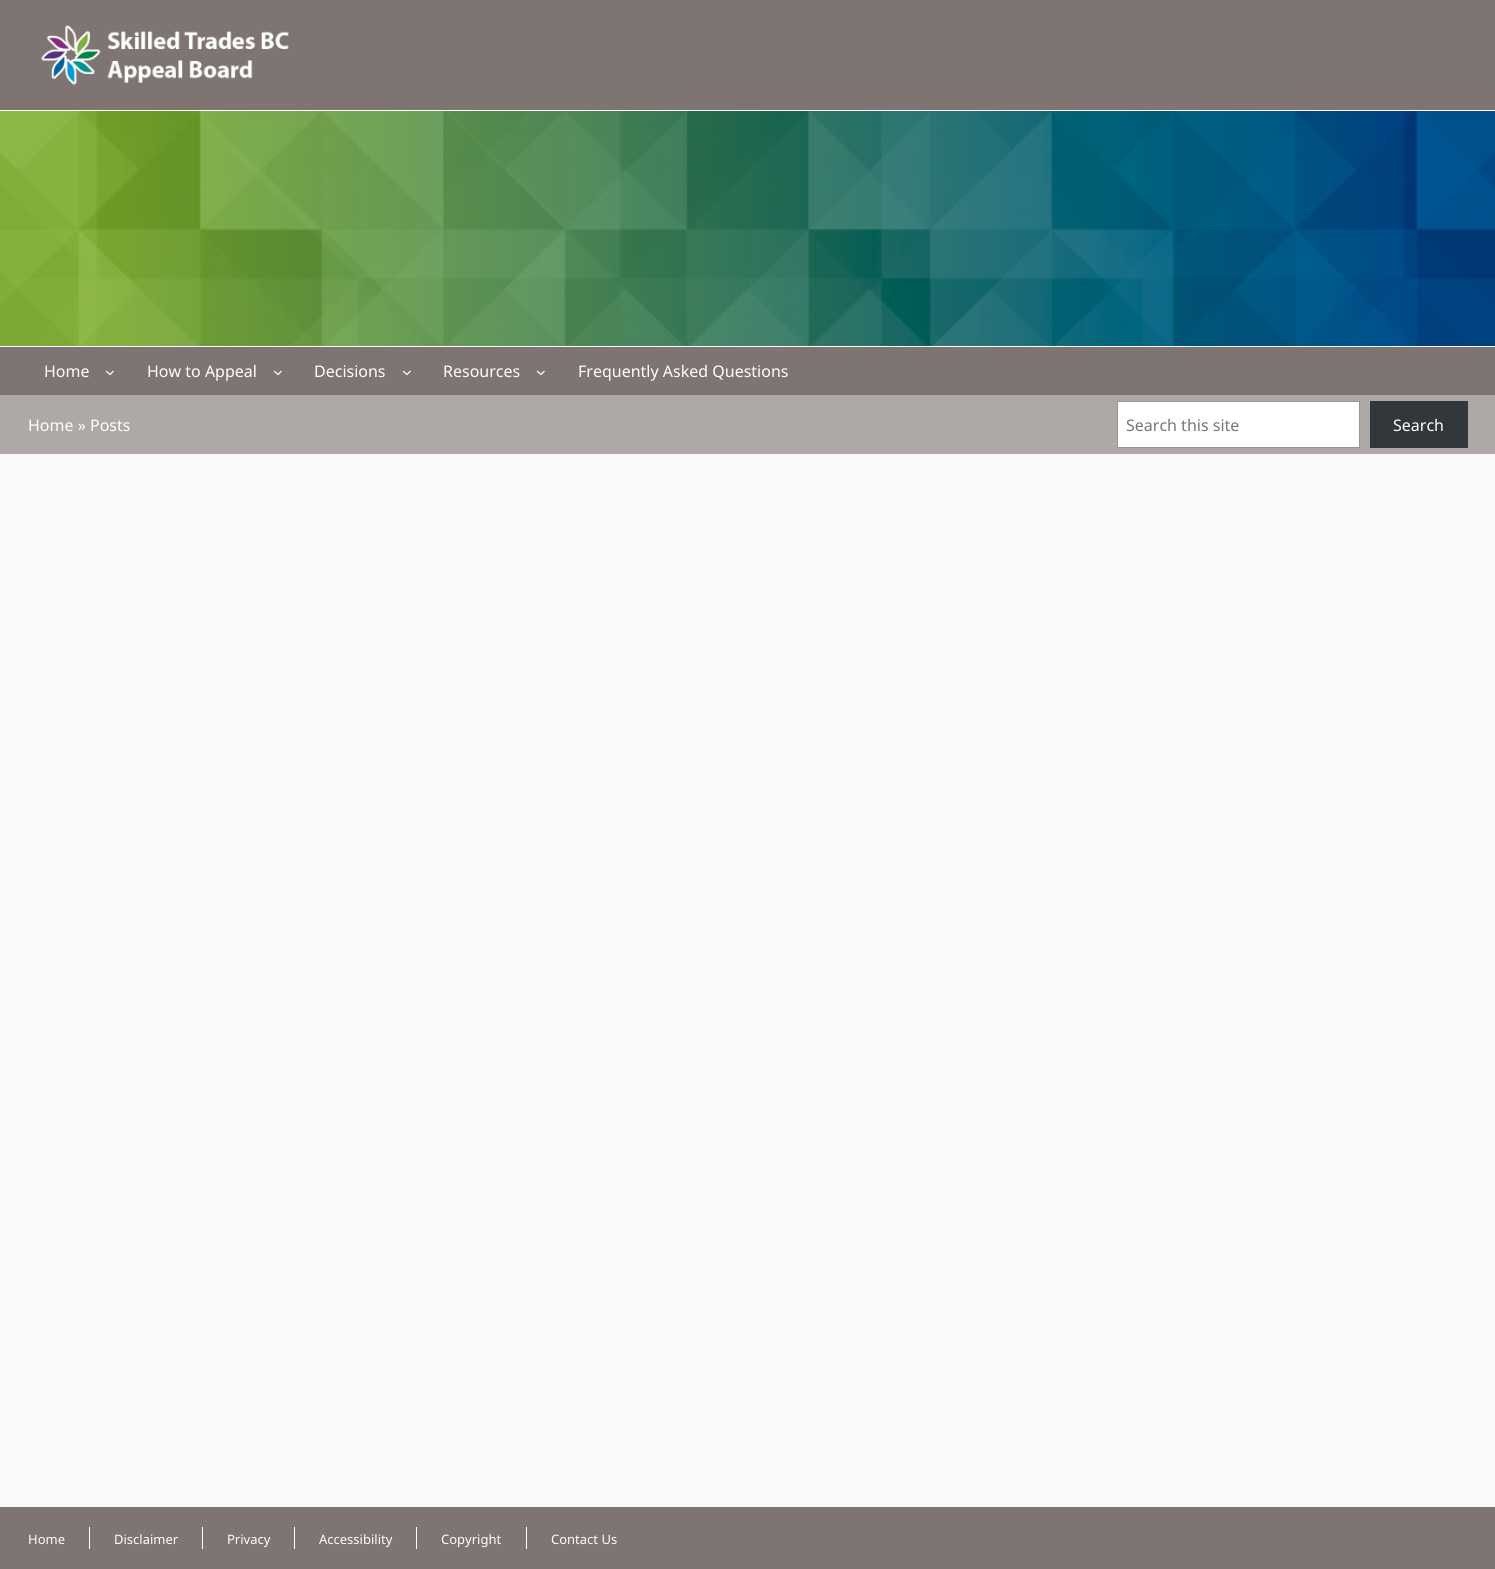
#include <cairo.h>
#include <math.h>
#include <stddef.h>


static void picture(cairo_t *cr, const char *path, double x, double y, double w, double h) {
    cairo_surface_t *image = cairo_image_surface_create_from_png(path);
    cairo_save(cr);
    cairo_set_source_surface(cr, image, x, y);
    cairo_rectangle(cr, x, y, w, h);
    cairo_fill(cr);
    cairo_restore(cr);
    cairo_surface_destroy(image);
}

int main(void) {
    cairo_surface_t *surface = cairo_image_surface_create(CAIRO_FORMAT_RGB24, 1495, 1569);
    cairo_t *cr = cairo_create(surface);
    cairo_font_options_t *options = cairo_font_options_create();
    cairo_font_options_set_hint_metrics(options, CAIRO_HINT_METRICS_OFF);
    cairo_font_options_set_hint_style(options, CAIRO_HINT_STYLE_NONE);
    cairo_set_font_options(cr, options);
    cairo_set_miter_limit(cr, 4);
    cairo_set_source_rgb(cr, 0.976, 0.976, 0.976);
    cairo_paint(cr);
    cairo_set_source_rgb(cr, 0.494, 0.455, 0.443);
    cairo_rectangle(cr, 0, 0, 1495, 110);
    cairo_fill(cr);
    picture(cr, "img1.png", 41, 25, 248, 60);
    cairo_set_source_rgb(cr, 1, 1, 1);
    cairo_rectangle(cr, 0, 110, 1495, 1);
    cairo_fill(cr);
    cairo_rectangle(cr, 0, 346, 1495, 1);
    cairo_fill(cr);
    picture(cr, "img2.png", 0, 111, 1495, 235);
    cairo_set_source_rgb(cr, 0.494, 0.455, 0.443);
    cairo_rectangle(cr, 0, 347, 1495, 48);
    cairo_fill(cr);
    cairo_select_font_face(cr, "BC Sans", CAIRO_FONT_SLANT_NORMAL, CAIRO_FONT_WEIGHT_NORMAL);
    cairo_set_font_size(cr, 16);
    cairo_set_source_rgb(cr, 1, 1, 1);
    cairo_move_to(cr, 44, 377);
    cairo_show_text(cr, "Home");
    cairo_new_path(cr);
    cairo_move_to(cr, 106, 371);
    cairo_line_to(cr, 110, 374.5);
    cairo_line_to(cr, 113.5, 371);
    cairo_set_line_width(cr, 1.2);
    cairo_stroke(cr);
    cairo_move_to(cr, 147, 377);
    cairo_show_text(cr, "How to Appeal");
    cairo_new_path(cr);
    cairo_move_to(cr, 274, 371);
    cairo_line_to(cr, 278, 374.5);
    cairo_line_to(cr, 281.5, 371);
    cairo_stroke(cr);
    cairo_move_to(cr, 314, 377);
    cairo_show_text(cr, "Decisions");
    cairo_new_path(cr);
    cairo_move_to(cr, 403, 371);
    cairo_line_to(cr, 407, 374.5);
    cairo_line_to(cr, 410.5, 371);
    cairo_stroke(cr);
    cairo_move_to(cr, 443, 377);
    cairo_show_text(cr, "Resources");
    cairo_new_path(cr);
    cairo_move_to(cr, 537, 371);
    cairo_line_to(cr, 541, 374.5);
    cairo_line_to(cr, 544.5, 371);
    cairo_stroke(cr);
    cairo_move_to(cr, 578, 377);
    cairo_show_text(cr, "Frequently Asked Questions");
    cairo_set_source_rgb(cr, 0.682, 0.659, 0.651);
    cairo_rectangle(cr, 0, 395, 1495, 59);
    cairo_fill(cr);
    cairo_set_source_rgb(cr, 1, 1, 1);
    cairo_move_to(cr, 28, 431);
    cairo_show_text(cr, "Home » Posts");
    cairo_rectangle(cr, 1117.5, 401.5, 242, 46);
    cairo_fill_preserve(cr);
    cairo_set_source_rgb(cr, 0.58, 0.58, 0.58);
    cairo_set_line_width(cr, 1);
    cairo_stroke(cr);
    cairo_set_source_rgb(cr, 0.459, 0.459, 0.459);
    cairo_move_to(cr, 1126, 431);
    cairo_show_text(cr, "Search this site");
    cairo_set_source_rgb(cr, 0.196, 0.216, 0.235);
    cairo_rectangle(cr, 1370, 401, 98, 47);
    cairo_fill(cr);
    cairo_set_source_rgb(cr, 1, 1, 1);
    cairo_move_to(cr, 1393, 431);
    cairo_show_text(cr, "Search");
    cairo_set_source_rgb(cr, 0.494, 0.455, 0.443);
    cairo_rectangle(cr, 0, 1507, 1495, 62);
    cairo_fill(cr);
    cairo_set_font_size(cr, 13);
    cairo_set_source_rgb(cr, 1, 1, 1);
    cairo_move_to(cr, 28, 1544);
    cairo_show_text(cr, "Home");
    cairo_rectangle(cr, 89, 1527, 1, 22);
    cairo_fill(cr);
    cairo_move_to(cr, 114, 1544);
    cairo_show_text(cr, "Disclaimer");
    cairo_rectangle(cr, 202, 1527, 1, 22);
    cairo_fill(cr);
    cairo_move_to(cr, 227, 1544);
    cairo_show_text(cr, "Privacy");
    cairo_rectangle(cr, 294, 1527, 1, 22);
    cairo_fill(cr);
    cairo_move_to(cr, 319, 1544);
    cairo_show_text(cr, "Accessibility");
    cairo_rectangle(cr, 416, 1527, 1, 22);
    cairo_fill(cr);
    cairo_move_to(cr, 441, 1544);
    cairo_show_text(cr, "Copyright");
    cairo_rectangle(cr, 526, 1527, 1, 22);
    cairo_fill(cr);
    cairo_move_to(cr, 551, 1544);
    cairo_show_text(cr, "Contact Us");
    cairo_surface_write_to_png(surface, "page.png");
    cairo_font_options_destroy(options);
    cairo_destroy(cr);
    cairo_surface_destroy(surface);
    return 0;
}
